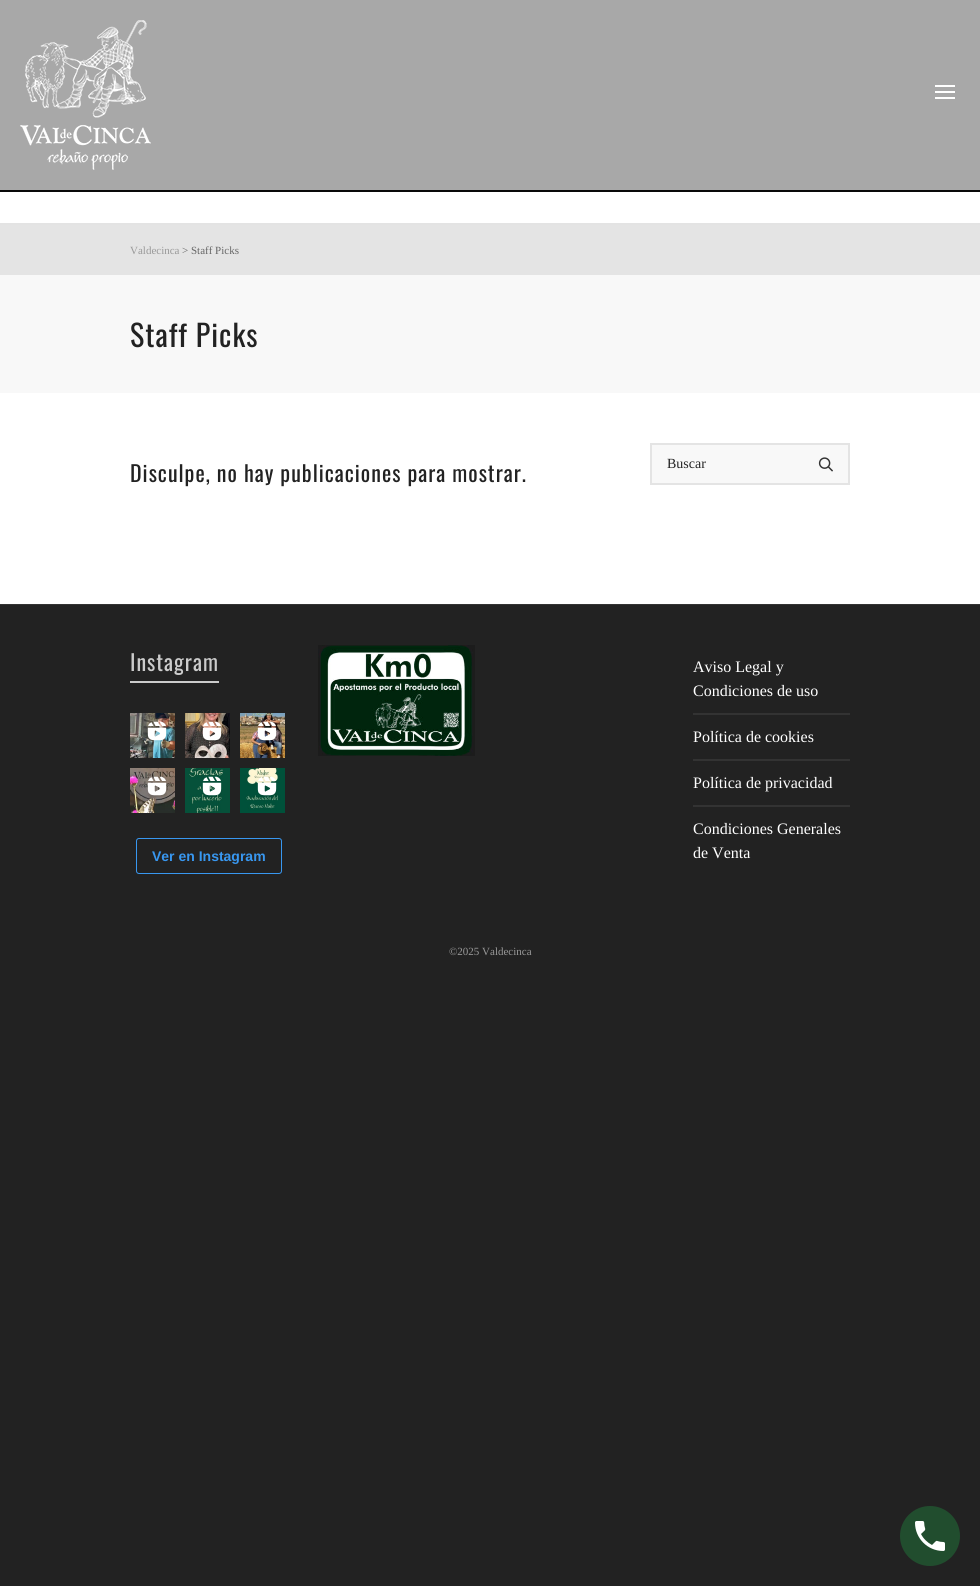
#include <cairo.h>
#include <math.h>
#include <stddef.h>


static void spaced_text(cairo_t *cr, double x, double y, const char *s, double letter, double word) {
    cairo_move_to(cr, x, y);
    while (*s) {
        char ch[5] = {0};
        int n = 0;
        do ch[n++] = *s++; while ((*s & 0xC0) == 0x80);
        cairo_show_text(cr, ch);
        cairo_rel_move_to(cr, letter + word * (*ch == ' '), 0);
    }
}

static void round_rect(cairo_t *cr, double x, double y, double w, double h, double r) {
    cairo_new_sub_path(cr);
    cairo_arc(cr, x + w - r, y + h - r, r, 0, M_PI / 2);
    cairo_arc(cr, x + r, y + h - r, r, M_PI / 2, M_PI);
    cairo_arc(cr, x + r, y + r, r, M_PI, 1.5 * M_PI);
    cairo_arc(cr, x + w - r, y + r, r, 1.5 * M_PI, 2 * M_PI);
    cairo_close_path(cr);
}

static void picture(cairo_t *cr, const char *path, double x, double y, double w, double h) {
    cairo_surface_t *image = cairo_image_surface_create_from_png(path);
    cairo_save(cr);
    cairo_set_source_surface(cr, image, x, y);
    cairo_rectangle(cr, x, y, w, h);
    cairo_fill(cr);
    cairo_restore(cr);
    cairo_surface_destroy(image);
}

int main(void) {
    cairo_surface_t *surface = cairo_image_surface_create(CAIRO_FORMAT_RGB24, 980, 1586);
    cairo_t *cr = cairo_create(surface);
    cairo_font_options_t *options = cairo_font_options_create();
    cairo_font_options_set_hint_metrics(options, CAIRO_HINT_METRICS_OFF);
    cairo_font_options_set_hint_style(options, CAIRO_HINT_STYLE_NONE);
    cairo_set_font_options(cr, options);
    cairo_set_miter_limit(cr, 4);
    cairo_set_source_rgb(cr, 0.133, 0.133, 0.133);
    cairo_paint(cr);
    cairo_set_source_rgb(cr, 0.659, 0.659, 0.659);
    cairo_rectangle(cr, 0, 0, 980, 190);
    cairo_fill(cr);
    cairo_set_source_rgb(cr, 0.039, 0.039, 0.039);
    cairo_rectangle(cr, 0, 190, 980, 2);
    cairo_fill(cr);
    picture(cr, "img1.png", 20, 20, 131, 150);
    cairo_set_source_rgb(cr, 1, 1, 1);
    cairo_rectangle(cr, 935, 91, 20, 2);
    cairo_fill(cr);
    cairo_rectangle(cr, 935, 85, 20, 2);
    cairo_fill(cr);
    cairo_rectangle(cr, 935, 97, 20, 2);
    cairo_fill(cr);
    cairo_rectangle(cr, 0, 192, 980, 31);
    cairo_fill(cr);
    cairo_set_source_rgb(cr, 0.89, 0.89, 0.89);
    cairo_rectangle(cr, 0, 223, 980, 2);
    cairo_fill(cr);
    cairo_set_source_rgb(cr, 1, 1, 1);
    cairo_rectangle(cr, 0, 393, 980, 211);
    cairo_fill(cr);
    cairo_set_source_rgb(cr, 0.894, 0.894, 0.894);
    cairo_rectangle(cr, 0, 225, 980, 50);
    cairo_fill(cr);
    cairo_select_font_face(cr, "Liberation Serif", CAIRO_FONT_SLANT_NORMAL, CAIRO_FONT_WEIGHT_NORMAL);
    cairo_set_font_size(cr, 11);
    cairo_set_source_rgb(cr, 0.6, 0.6, 0.6);
    cairo_move_to(cr, 130, 254);
    cairo_show_text(cr, "Valdecinca");
    cairo_set_source_rgb(cr, 0.4, 0.4, 0.4);
    cairo_move_to(cr, 182, 254);
    cairo_show_text(cr, "> Staff Picks");
    cairo_set_source_rgb(cr, 0.969, 0.969, 0.969);
    cairo_rectangle(cr, 0, 275, 980, 118);
    cairo_fill(cr);
    cairo_select_font_face(cr, "Oswald", CAIRO_FONT_SLANT_NORMAL, CAIRO_FONT_WEIGHT_NORMAL);
    cairo_set_font_size(cr, 30);
    cairo_set_source_rgb(cr, 0.133, 0.133, 0.133);
    spaced_text(cr, 130, 347, "Staff Picks", 1, 0);
    cairo_set_font_size(cr, 22);
    spaced_text(cr, 130, 482, "Disculpe, no hay publicaciones para mostrar.", 1, 0);
    cairo_set_source_rgb(cr, 0.969, 0.969, 0.969);
    cairo_rectangle(cr, 651, 444, 198, 40);
    cairo_fill_preserve(cr);
    cairo_set_source_rgb(cr, 0.894, 0.894, 0.894);
    cairo_stroke(cr);
    cairo_select_font_face(cr, "Liberation Serif", CAIRO_FONT_SLANT_NORMAL, CAIRO_FONT_WEIGHT_NORMAL);
    cairo_set_font_size(cr, 14);
    cairo_set_source_rgb(cr, 0.133, 0.133, 0.133);
    cairo_move_to(cr, 667, 468);
    cairo_show_text(cr, "Buscar");
    picture(cr, "img2.png", 818, 457, 15, 15);
    cairo_set_source_rgb(cr, 0.2, 0.2, 0.2);
    cairo_rectangle(cr, 0, 604, 980, 1);
    cairo_fill(cr);
    cairo_set_source_rgb(cr, 0.8, 0.8, 0.8);
    cairo_rectangle(cr, 130, 681, 89, 2);
    cairo_fill(cr);
    cairo_select_font_face(cr, "Oswald", CAIRO_FONT_SLANT_NORMAL, CAIRO_FONT_WEIGHT_NORMAL);
    cairo_set_font_size(cr, 22);
    spaced_text(cr, 130, 671, "Instagram", 1, 0);
    picture(cr, "img3.png", 130, 713, 45, 45);
    picture(cr, "img4.png", 147, 721, 21, 22);
    picture(cr, "img5.png", 185, 713, 45, 45);
    picture(cr, "img6.png", 202, 721, 20, 21);
    picture(cr, "img7.png", 240, 713, 45, 45);
    picture(cr, "img8.png", 257, 721, 21, 21);
    picture(cr, "img9.png", 130, 768, 45, 45);
    picture(cr, "img10.png", 147, 776, 20, 21);
    picture(cr, "img11.png", 185, 768, 45, 45);
    picture(cr, "img12.png", 202, 776, 20, 22);
    picture(cr, "img13.png", 240, 768, 45, 45);
    picture(cr, "img14.png", 257, 776, 20, 21);
    round_rect(cr, 136.5, 838.5, 145, 35, 2.5);
    cairo_set_source_rgb(cr, 0.22, 0.592, 0.941);
    cairo_set_line_width(cr, 1);
    cairo_stroke(cr);
    cairo_select_font_face(cr, "Liberation Sans", CAIRO_FONT_SLANT_NORMAL, CAIRO_FONT_WEIGHT_BOLD);
    cairo_set_font_size(cr, 14);
    cairo_move_to(cr, 152, 861);
    cairo_show_text(cr, "Ver en Instagram");
    picture(cr, "img15.png", 318, 645, 157, 111);
    cairo_select_font_face(cr, "Liberation Serif", CAIRO_FONT_SLANT_NORMAL, CAIRO_FONT_WEIGHT_NORMAL);
    cairo_set_font_size(cr, 16);
    cairo_set_source_rgb(cr, 1, 1, 1);
    cairo_move_to(cr, 693, 672);
    cairo_show_text(cr, "Aviso Legal y");
    cairo_move_to(cr, 693, 696);
    cairo_show_text(cr, "Condiciones de uso");
    cairo_set_source_rgb(cr, 0.2, 0.2, 0.2);
    cairo_rectangle(cr, 693, 713, 157, 2);
    cairo_fill(cr);
    cairo_set_source_rgb(cr, 1, 1, 1);
    cairo_move_to(cr, 693, 742);
    cairo_show_text(cr, "Política de cookies");
    cairo_set_source_rgb(cr, 0.2, 0.2, 0.2);
    cairo_rectangle(cr, 693, 759, 157, 2);
    cairo_fill(cr);
    cairo_set_source_rgb(cr, 1, 1, 1);
    cairo_move_to(cr, 693, 788);
    cairo_show_text(cr, "Política de privacidad");
    cairo_set_source_rgb(cr, 0.2, 0.2, 0.2);
    cairo_rectangle(cr, 693, 805, 157, 2);
    cairo_fill(cr);
    cairo_set_source_rgb(cr, 1, 1, 1);
    cairo_move_to(cr, 693, 834);
    cairo_show_text(cr, "Condiciones Generales");
    cairo_move_to(cr, 693, 858);
    cairo_show_text(cr, "de Venta");
    cairo_set_font_size(cr, 11);
    cairo_set_source_rgb(cr, 0.6, 0.6, 0.6);
    cairo_move_to(cr, 449, 955);
    cairo_show_text(cr, "©2025 Valdecinca");
    cairo_set_source_rgb(cr, 0.129, 0.302, 0.18);
    cairo_new_path(cr);
    cairo_arc(cr, 930, 1536, 30, 0, 2 * M_PI);
    cairo_fill(cr);
    picture(cr, "img16.png", 915, 1521, 30, 30);
    cairo_surface_write_to_png(surface, "page.png");
    cairo_font_options_destroy(options);
    cairo_destroy(cr);
    cairo_surface_destroy(surface);
    return 0;
}
